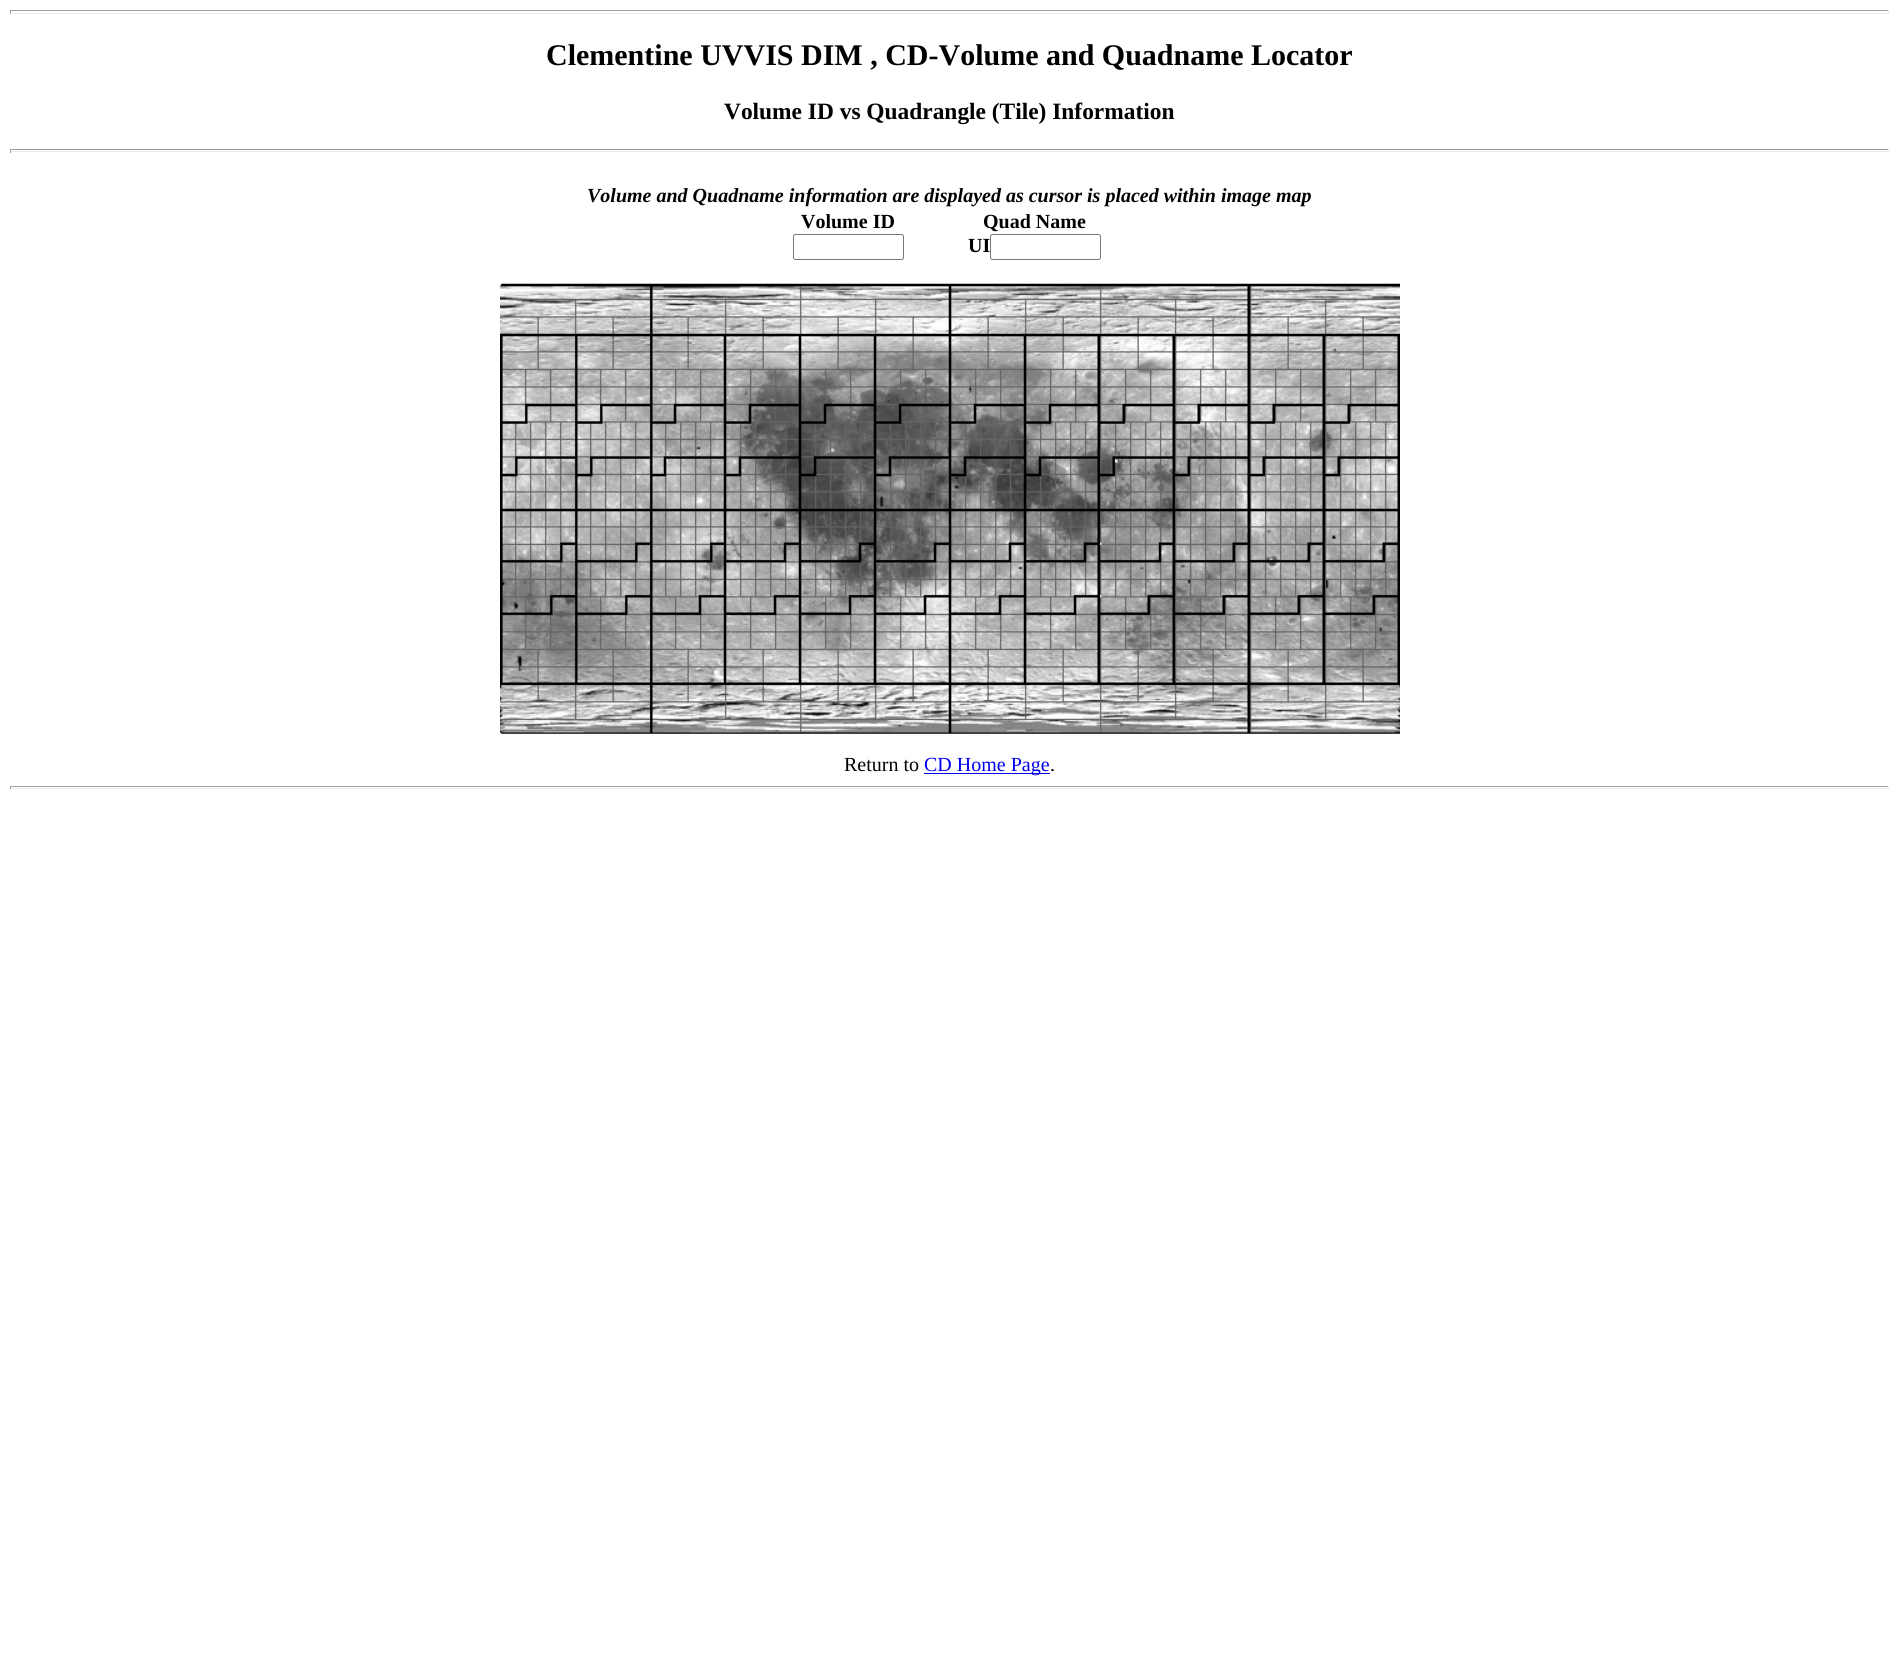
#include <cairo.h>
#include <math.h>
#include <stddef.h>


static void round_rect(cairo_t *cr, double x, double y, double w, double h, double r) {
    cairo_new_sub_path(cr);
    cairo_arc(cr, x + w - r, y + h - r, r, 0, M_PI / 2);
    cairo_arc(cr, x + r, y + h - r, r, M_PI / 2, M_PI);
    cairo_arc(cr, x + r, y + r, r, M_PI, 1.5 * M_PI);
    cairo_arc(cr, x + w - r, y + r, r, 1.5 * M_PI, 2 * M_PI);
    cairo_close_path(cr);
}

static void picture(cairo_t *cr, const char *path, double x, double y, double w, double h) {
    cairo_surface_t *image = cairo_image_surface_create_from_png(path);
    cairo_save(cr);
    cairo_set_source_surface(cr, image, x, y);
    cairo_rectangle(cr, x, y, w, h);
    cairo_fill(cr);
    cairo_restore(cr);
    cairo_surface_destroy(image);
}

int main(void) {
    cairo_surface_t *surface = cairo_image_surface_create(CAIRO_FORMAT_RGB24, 1898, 1675);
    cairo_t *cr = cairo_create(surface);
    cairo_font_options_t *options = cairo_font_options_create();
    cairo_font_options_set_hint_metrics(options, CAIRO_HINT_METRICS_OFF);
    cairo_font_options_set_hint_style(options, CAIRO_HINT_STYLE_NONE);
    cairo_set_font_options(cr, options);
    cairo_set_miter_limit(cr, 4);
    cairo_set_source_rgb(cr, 1, 1, 1);
    cairo_paint(cr);
    cairo_set_source_rgb(cr, 0.624, 0.624, 0.624);
    cairo_rectangle(cr, 10, 10, 1879, 1);
    cairo_fill(cr);
    cairo_set_source_rgb(cr, 0.933, 0.933, 0.933);
    cairo_rectangle(cr, 1888, 10, 1, 4);
    cairo_fill(cr);
    cairo_rectangle(cr, 10, 13, 1879, 1);
    cairo_fill(cr);
    cairo_set_source_rgb(cr, 0.624, 0.624, 0.624);
    cairo_rectangle(cr, 10, 10, 1, 4);
    cairo_fill(cr);
    cairo_select_font_face(cr, "Liberation Serif", CAIRO_FONT_SLANT_NORMAL, CAIRO_FONT_WEIGHT_BOLD);
    cairo_set_font_size(cr, 30);
    cairo_set_source_rgb(cr, 0, 0, 0);
    cairo_move_to(cr, 546, 65);
    cairo_show_text(cr, "Clementine UVVIS DIM , CD-Volume and Quadname Locator");
    cairo_set_font_size(cr, 23.4);
    cairo_move_to(cr, 724, 119);
    cairo_show_text(cr, "Volume ID vs Quadrangle (Tile) Information");
    cairo_set_source_rgb(cr, 0.624, 0.624, 0.624);
    cairo_rectangle(cr, 10, 149, 1879, 1);
    cairo_fill(cr);
    cairo_set_source_rgb(cr, 0.933, 0.933, 0.933);
    cairo_rectangle(cr, 1888, 149, 1, 4);
    cairo_fill(cr);
    cairo_rectangle(cr, 10, 151, 1879, 1);
    cairo_fill(cr);
    cairo_set_source_rgb(cr, 0.624, 0.624, 0.624);
    cairo_rectangle(cr, 10, 149, 1, 4);
    cairo_fill(cr);
    cairo_select_font_face(cr, "Liberation Serif", CAIRO_FONT_SLANT_ITALIC, CAIRO_FONT_WEIGHT_BOLD);
    cairo_set_font_size(cr, 20);
    cairo_set_source_rgb(cr, 0, 0, 0);
    cairo_move_to(cr, 587, 202);
    cairo_show_text(cr, "Volume and Quadname information are displayed as cursor is placed within image map");
    cairo_select_font_face(cr, "Liberation Serif", CAIRO_FONT_SLANT_NORMAL, CAIRO_FONT_WEIGHT_BOLD);
    cairo_move_to(cr, 801, 228);
    cairo_show_text(cr, "Volume ID");
    round_rect(cr, 793.5, 234.5, 110, 25, 2);
    cairo_set_source_rgb(cr, 0.463, 0.463, 0.463);
    cairo_set_line_width(cr, 1);
    cairo_stroke(cr);
    cairo_set_source_rgb(cr, 0, 0, 0);
    cairo_move_to(cr, 983, 228);
    cairo_show_text(cr, "Quad Name");
    cairo_move_to(cr, 968, 252);
    cairo_show_text(cr, "UI");
    round_rect(cr, 990.5, 234.5, 110, 25, 2);
    cairo_set_source_rgb(cr, 0.463, 0.463, 0.463);
    cairo_stroke(cr);
    picture(cr, "img1.png", 500, 283, 900, 451);
    cairo_select_font_face(cr, "Liberation Serif", CAIRO_FONT_SLANT_NORMAL, CAIRO_FONT_WEIGHT_NORMAL);
    cairo_set_source_rgb(cr, 0, 0, 0);
    cairo_move_to(cr, 844, 771);
    cairo_show_text(cr, "Return to");
    cairo_set_source_rgb(cr, 0, 0, 0.933);
    cairo_rectangle(cr, 924, 773, 126, 1);
    cairo_fill(cr);
    cairo_move_to(cr, 924, 771);
    cairo_show_text(cr, "CD Home Page");
    cairo_set_source_rgb(cr, 0, 0, 0);
    cairo_move_to(cr, 1050, 771);
    cairo_show_text(cr, ".");
    cairo_set_source_rgb(cr, 0.624, 0.624, 0.624);
    cairo_rectangle(cr, 10, 786, 1879, 1);
    cairo_fill(cr);
    cairo_set_source_rgb(cr, 0.933, 0.933, 0.933);
    cairo_rectangle(cr, 1888, 786, 1, 3);
    cairo_fill(cr);
    cairo_rectangle(cr, 10, 788, 1879, 1);
    cairo_fill(cr);
    cairo_set_source_rgb(cr, 0.624, 0.624, 0.624);
    cairo_rectangle(cr, 10, 786, 1, 3);
    cairo_fill(cr);
    cairo_surface_write_to_png(surface, "page.png");
    cairo_font_options_destroy(options);
    cairo_destroy(cr);
    cairo_surface_destroy(surface);
    return 0;
}
